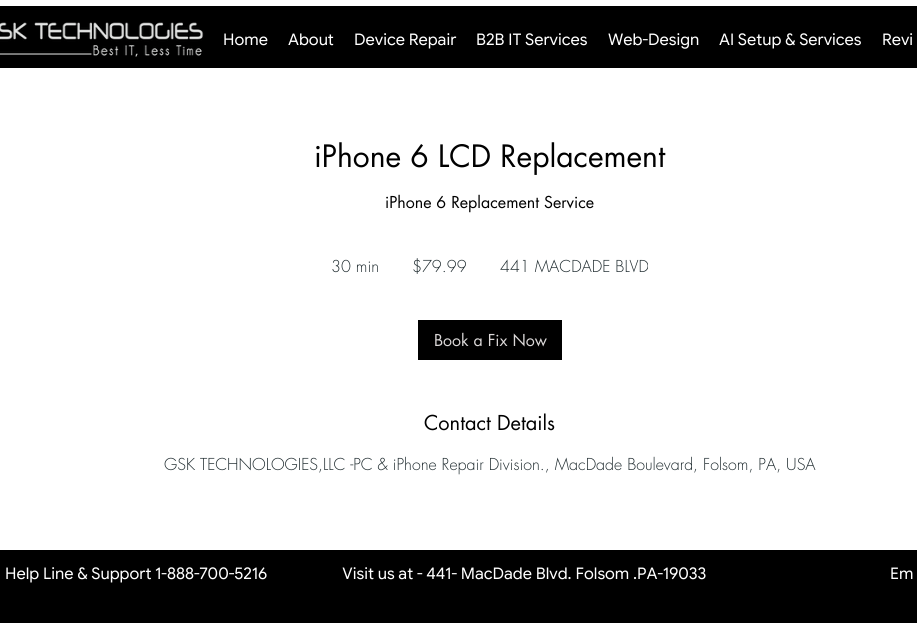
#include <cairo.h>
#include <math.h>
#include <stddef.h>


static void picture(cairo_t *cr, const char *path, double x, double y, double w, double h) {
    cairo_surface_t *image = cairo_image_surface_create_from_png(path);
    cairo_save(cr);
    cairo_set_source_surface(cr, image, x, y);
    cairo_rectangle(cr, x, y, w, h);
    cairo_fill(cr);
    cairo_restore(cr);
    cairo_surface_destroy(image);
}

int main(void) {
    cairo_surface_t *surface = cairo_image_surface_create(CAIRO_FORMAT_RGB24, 917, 625);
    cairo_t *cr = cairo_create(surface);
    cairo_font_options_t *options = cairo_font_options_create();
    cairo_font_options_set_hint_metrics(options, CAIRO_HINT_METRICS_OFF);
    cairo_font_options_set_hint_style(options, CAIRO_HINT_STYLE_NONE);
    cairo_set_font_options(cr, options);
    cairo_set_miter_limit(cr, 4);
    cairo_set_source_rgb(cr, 1, 1, 1);
    cairo_paint(cr);
    cairo_set_source_rgb(cr, 0, 0, 0);
    cairo_rectangle(cr, 0, 6, 917, 62);
    cairo_fill(cr);
    picture(cr, "img1.png", 0, 22, 204, 35);
    cairo_select_font_face(cr, "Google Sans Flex", CAIRO_FONT_SLANT_NORMAL, CAIRO_FONT_WEIGHT_NORMAL);
    cairo_set_font_size(cr, 16);
    cairo_set_source_rgb(cr, 1, 1, 1);
    cairo_move_to(cr, 223, 45);
    cairo_show_text(cr, "Home");
    cairo_move_to(cr, 288, 45);
    cairo_show_text(cr, "About");
    cairo_move_to(cr, 354, 45);
    cairo_show_text(cr, "Device Repair");
    cairo_move_to(cr, 476, 45);
    cairo_show_text(cr, "B2B IT Services");
    cairo_move_to(cr, 608, 45);
    cairo_show_text(cr, "Web-Design");
    cairo_move_to(cr, 719, 45);
    cairo_show_text(cr, "AI Setup & Services");
    cairo_move_to(cr, 882, 45);
    cairo_show_text(cr, "Revi");
    cairo_select_font_face(cr, "futura", CAIRO_FONT_SLANT_NORMAL, CAIRO_FONT_WEIGHT_NORMAL);
    cairo_set_font_size(cr, 30);
    cairo_set_source_rgb(cr, 0, 0, 0);
    cairo_move_to(cr, 314, 167);
    cairo_show_text(cr, "iPhone 6 LCD Replacement");
    cairo_set_font_size(cr, 16);
    cairo_move_to(cr, 385, 208);
    cairo_show_text(cr, "iPhone 6 Replacement Service");
    cairo_select_font_face(cr, "futura Light", CAIRO_FONT_SLANT_NORMAL, CAIRO_FONT_WEIGHT_NORMAL);
    cairo_set_source_rgb(cr, 0.122, 0.169, 0.184);
    cairo_move_to(cr, 331, 272);
    cairo_show_text(cr, "30 min");
    cairo_move_to(cr, 412, 272);
    cairo_show_text(cr, "$79.99");
    cairo_move_to(cr, 500, 272);
    cairo_show_text(cr, "441 MACDADE BLVD");
    cairo_set_source_rgb(cr, 0, 0, 0);
    cairo_rectangle(cr, 418, 320, 144, 40);
    cairo_fill(cr);
    cairo_select_font_face(cr, "futura", CAIRO_FONT_SLANT_NORMAL, CAIRO_FONT_WEIGHT_NORMAL);
    cairo_set_source_rgb(cr, 0.859, 0.847, 0.847);
    cairo_move_to(cr, 434, 346);
    cairo_show_text(cr, "Book a Fix Now");
    cairo_set_font_size(cr, 20);
    cairo_set_source_rgb(cr, 0, 0, 0);
    cairo_move_to(cr, 424, 430);
    cairo_show_text(cr, "Contact Details");
    cairo_select_font_face(cr, "futura Light", CAIRO_FONT_SLANT_NORMAL, CAIRO_FONT_WEIGHT_NORMAL);
    cairo_set_font_size(cr, 16);
    cairo_set_source_rgb(cr, 0.122, 0.169, 0.184);
    cairo_move_to(cr, 164, 470);
    cairo_show_text(cr, "GSK TECHNOLOGIES,LLC -PC & iPhone Repair Division., MacDade Boulevard, Folsom, PA, USA");
    cairo_set_source_rgb(cr, 0, 0, 0);
    cairo_rectangle(cr, 0, 550, 917, 73);
    cairo_fill(cr);
    cairo_select_font_face(cr, "Google Sans Flex", CAIRO_FONT_SLANT_NORMAL, CAIRO_FONT_WEIGHT_NORMAL);
    cairo_set_source_rgb(cr, 1, 1, 1);
    cairo_move_to(cr, 5, 579);
    cairo_show_text(cr, "Help Line & Support 1-888-700-5216                    Visit us at - 441- MacDade Blvd. Folsom .PA-19033");
    cairo_move_to(cr, 890, 579);
    cairo_show_text(cr, "Em");
    cairo_surface_write_to_png(surface, "page.png");
    cairo_font_options_destroy(options);
    cairo_destroy(cr);
    cairo_surface_destroy(surface);
    return 0;
}
